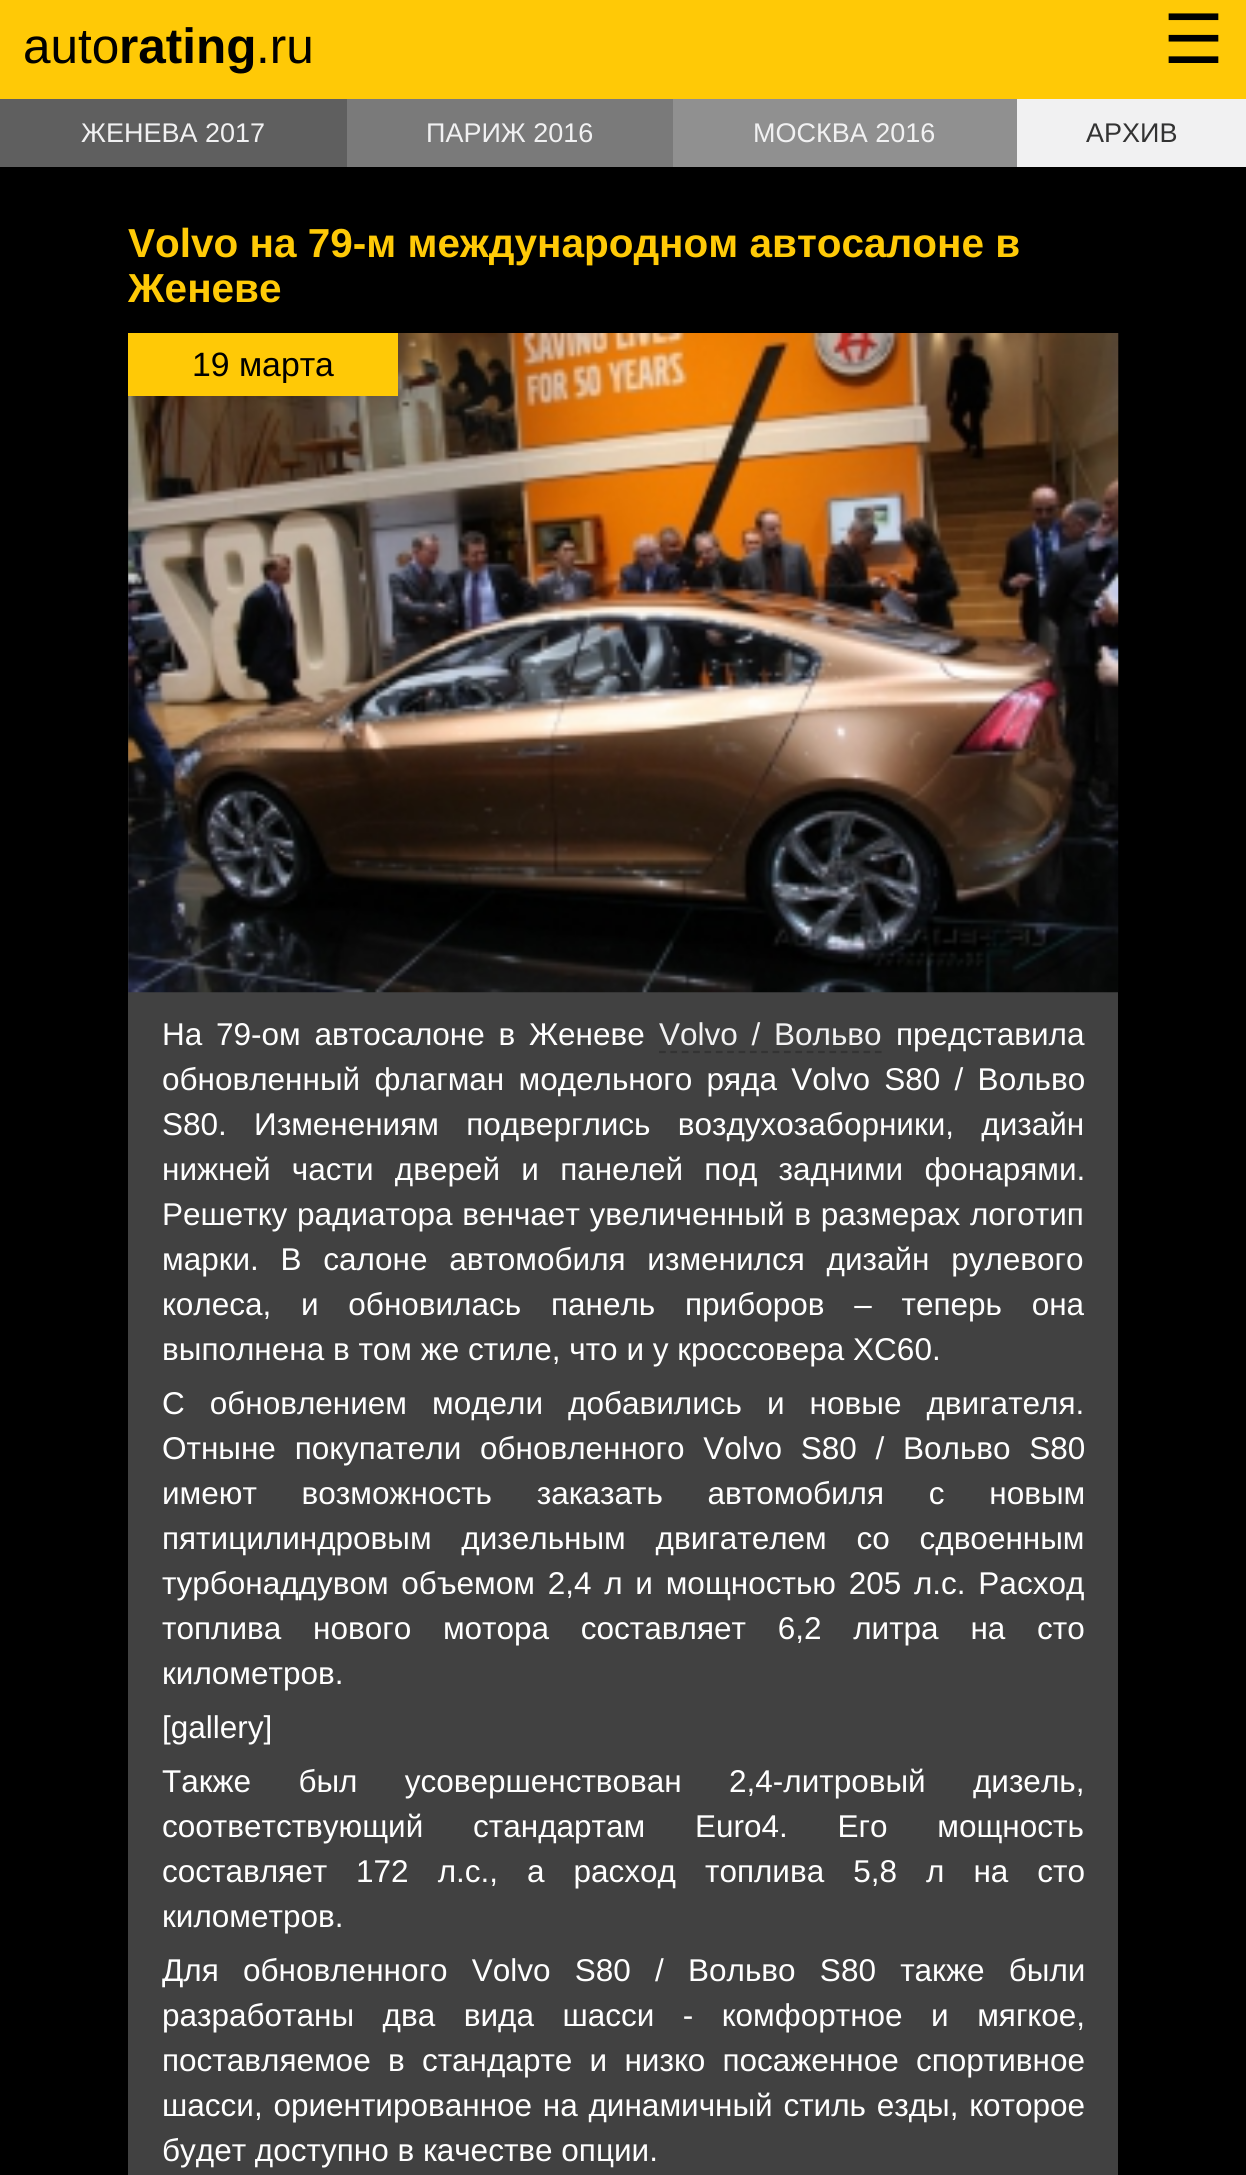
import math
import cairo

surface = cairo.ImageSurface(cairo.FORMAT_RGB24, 1246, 2175)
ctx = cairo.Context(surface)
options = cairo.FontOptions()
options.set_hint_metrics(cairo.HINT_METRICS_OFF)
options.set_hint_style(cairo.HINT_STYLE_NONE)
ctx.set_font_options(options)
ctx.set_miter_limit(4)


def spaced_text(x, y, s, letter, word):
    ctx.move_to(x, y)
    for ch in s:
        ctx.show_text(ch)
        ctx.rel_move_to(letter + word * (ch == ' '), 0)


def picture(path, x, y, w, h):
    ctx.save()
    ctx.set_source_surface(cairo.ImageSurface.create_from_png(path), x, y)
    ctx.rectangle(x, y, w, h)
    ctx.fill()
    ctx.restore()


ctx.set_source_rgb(0, 0, 0)
ctx.paint()
ctx.set_source_rgb(1, 0.788, 0.027)
ctx.rectangle(0, 0, 1246, 99)
ctx.fill()
ctx.select_font_face("Liberation Sans")
ctx.set_font_size(49.5)
ctx.set_source_rgb(0, 0, 0)
ctx.move_to(23, 63)
ctx.show_text("auto")
ctx.select_font_face("Liberation Sans", cairo.FONT_SLANT_NORMAL, cairo.FONT_WEIGHT_BOLD)
ctx.move_to(119, 63)
ctx.show_text("rating")
ctx.select_font_face("Liberation Sans")
ctx.move_to(256, 63)
ctx.show_text(".ru")
ctx.select_font_face("DejaVu Sans")
ctx.set_font_size(68)
ctx.move_to(1163, 63)
ctx.show_text("☰")
ctx.set_source_rgb(0.373, 0.373, 0.373)
ctx.rectangle(0, 99, 347, 68)
ctx.fill()
ctx.select_font_face("Liberation Sans")
ctx.set_font_size(27)
ctx.set_source_rgb(0.945, 0.945, 0.949)
ctx.move_to(81, 142)
ctx.show_text("ЖЕНЕВА 2017")
ctx.set_source_rgb(0.478, 0.478, 0.478)
ctx.rectangle(347, 99, 326, 68)
ctx.fill()
ctx.set_source_rgb(0.945, 0.945, 0.949)
ctx.move_to(426, 142)
ctx.show_text("ПАРИЖ 2016")
ctx.set_source_rgb(0.565, 0.565, 0.565)
ctx.rectangle(673, 99, 344, 68)
ctx.fill()
ctx.set_source_rgb(0.945, 0.945, 0.949)
ctx.move_to(753, 142)
ctx.show_text("МОСКВА 2016")
ctx.rectangle(1017, 99, 229, 68)
ctx.fill()
ctx.set_source_rgb(0.2, 0.2, 0.2)
ctx.move_to(1086, 142)
ctx.show_text("АРХИВ")
ctx.select_font_face("Liberation Sans", cairo.FONT_SLANT_NORMAL, cairo.FONT_WEIGHT_BOLD)
ctx.set_font_size(40.5)
ctx.set_source_rgb(1, 0.792, 0.031)
ctx.move_to(128, 257)
ctx.show_text("Volvo на 79-м международном автосалоне в")
ctx.move_to(128, 302)
ctx.show_text("Женеве")
ctx.set_source_rgb(0.255, 0.255, 0.255)
ctx.rectangle(128, 396, 990, 1779)
ctx.fill()
picture("img1.png", 128, 333, 991, 660)
ctx.set_source_rgb(1, 0.788, 0.027)
ctx.rectangle(128, 333, 270, 63)
ctx.fill()
ctx.select_font_face("Liberation Sans")
ctx.set_font_size(33.75)
ctx.set_source_rgb(0, 0, 0)
ctx.move_to(192, 376)
ctx.show_text("19 марта")
ctx.set_font_size(31.5)
ctx.set_source_rgb(1, 1, 1)
spaced_text(162, 1045, "На 79-ом автосалоне в Женеве", 0, 5)
ctx.set_source_rgb(0.945, 0.945, 0.949)
spaced_text(659, 1045, "Volvo / Вольво", 0, 5)
ctx.new_path()
ctx.move_to(659, 1052)
ctx.line_to(882, 1052)
ctx.set_source_rgb(0.2, 0.2, 0.2)
ctx.set_line_width(2.2)
ctx.set_dash([6.75, 4.61])
ctx.stroke()
ctx.set_source_rgb(1, 1, 1)
ctx.move_to(896, 1045)
ctx.show_text("представила")
spaced_text(162, 1090, "обновленный флагман модельного ряда Volvo S80 / Вольво", 0, 5.5)
spaced_text(162, 1135, "S80. Изменениям подверглись воздухозаборники, дизайн", 0, 18.5)
spaced_text(162, 1180, "нижней части дверей и панелей под задними фонарями.", 0, 12.5)
spaced_text(162, 1225, "Решетку радиатора венчает увеличенный в размерах логотип", 0, 1)
spaced_text(162, 1270, "марки. В салоне автомобиля изменился дизайн рулевого", 0, 13)
spaced_text(162, 1315, "колеса, и обновилась панель приборов – теперь она", 0, 21)
ctx.move_to(162, 1360)
ctx.show_text("выполнена в том же стиле, что и у кроссовера XC60.")
spaced_text(162, 1414, "С обновлением модели добавились и новые двигателя.", 0, 16.25)
spaced_text(162, 1459, "Отныне покупатели обновленного Volvo S80 / Вольво S80", 0, 10)
spaced_text(162, 1504, "имеют возможность заказать автомобиля с новым", 0, 36)
spaced_text(162, 1549, "пятицилиндровым дизельным двигателем со сдвоенным", 0, 21)
spaced_text(162, 1594, "турбонаддувом объемом 2,4 л и мощностью 205 л.с. Расход", 0, 4)
spaced_text(162, 1639, "топлива нового мотора составляет 6,2 литра на сто", 0, 23)
ctx.move_to(162, 1684)
ctx.show_text("километров.")
ctx.move_to(162, 1738)
ctx.show_text("[gallery]")
spaced_text(162, 1792, "Также был усовершенствован 2,4-литровый дизель,", 0, 38.5)
spaced_text(162, 1837, "соответствующий стандартам Euro4. Его мощность", 0, 41)
spaced_text(162, 1882, "составляет 172 л.с., а расход топлива 5,8 л на сто", 0, 20.25)
ctx.move_to(162, 1927)
ctx.show_text("километров.")
spaced_text(162, 1981, "Для обновленного Volvo S80 / Вольво S80 также были", 0, 15.5)
spaced_text(162, 2026, "разработаны два вида шасси - комфортное и мягкое,", 0, 19.75)
spaced_text(162, 2071, "поставляемое в стандарте и низко посаженное спортивное", 0, 8.5)
spaced_text(162, 2116, "шасси, ориентированное на динамичный стиль езды, которое", 0, 2)
ctx.move_to(162, 2161)
ctx.show_text("будет доступно в качестве опции.")
surface.write_to_png("page.png")
